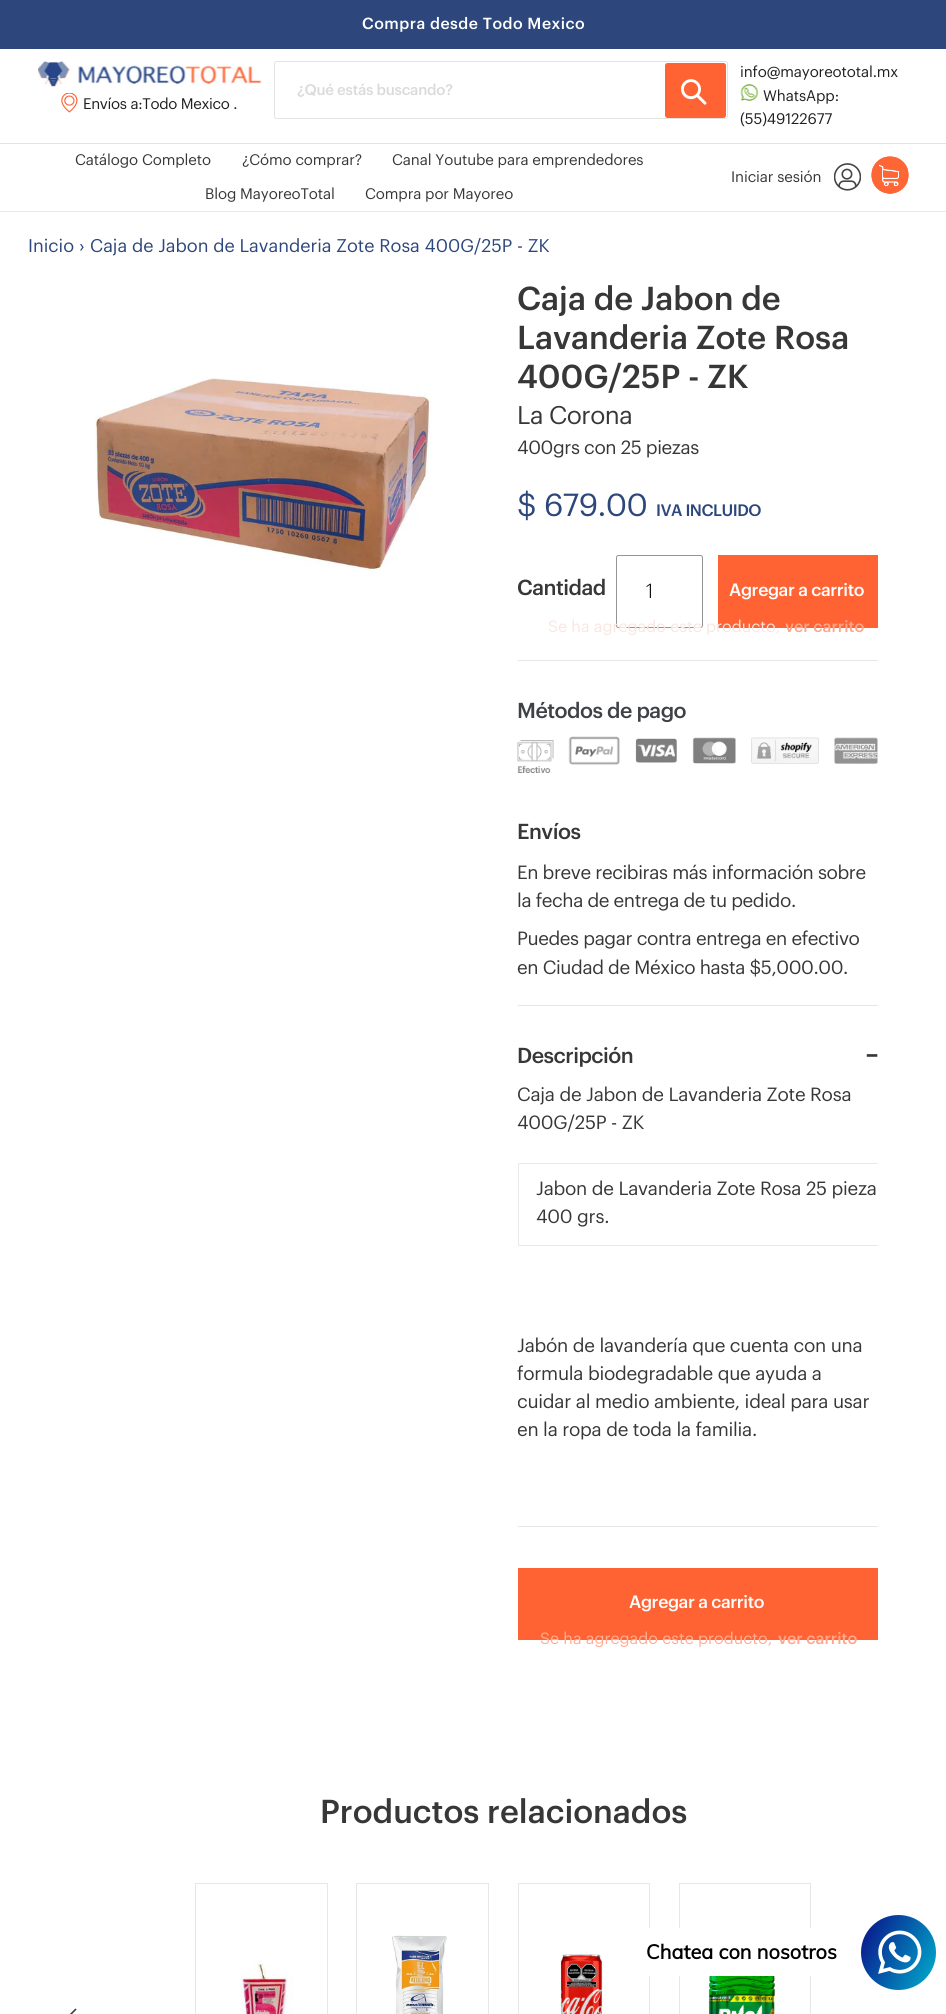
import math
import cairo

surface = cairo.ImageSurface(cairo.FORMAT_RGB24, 946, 2014)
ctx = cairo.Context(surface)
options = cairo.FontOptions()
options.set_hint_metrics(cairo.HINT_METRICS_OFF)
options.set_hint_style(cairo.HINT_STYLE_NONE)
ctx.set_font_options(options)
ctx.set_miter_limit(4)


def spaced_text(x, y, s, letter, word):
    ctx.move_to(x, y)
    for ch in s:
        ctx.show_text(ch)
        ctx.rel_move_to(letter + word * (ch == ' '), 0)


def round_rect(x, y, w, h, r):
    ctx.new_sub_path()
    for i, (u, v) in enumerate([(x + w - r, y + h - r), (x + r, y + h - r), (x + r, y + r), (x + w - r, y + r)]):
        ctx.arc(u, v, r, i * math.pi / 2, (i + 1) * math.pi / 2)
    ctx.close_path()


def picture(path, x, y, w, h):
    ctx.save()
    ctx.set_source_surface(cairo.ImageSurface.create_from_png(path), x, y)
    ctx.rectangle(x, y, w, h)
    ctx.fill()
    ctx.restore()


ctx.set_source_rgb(1, 1, 1)
ctx.paint()
ctx.set_source_rgb(0.176, 0.278, 0.486)
ctx.rectangle(0, 0, 946, 49)
ctx.fill()
ctx.select_font_face("Graphik Medium")
ctx.set_font_size(15.75)
ctx.set_source_rgb(1, 1, 1)
spaced_text(362, 29, "Compra desde Todo Mexico", 0.5, 0)
round_rect(274.5, 61.5, 453, 57, 2)
ctx.set_source_rgb(0.886, 0.894, 0.882)
ctx.set_line_width(1)
ctx.stroke()
ctx.set_font_size(15)
ctx.set_source_rgb(0.855, 0.855, 0.855)
spaced_text(297, 95, "¿Qué estás buscando?", -0.25, 0)
ctx.set_source_rgb(1, 0.388, 0.2)
round_rect(665, 63, 61, 55, 2.5)
ctx.fill()
picture("img1.png", 681, 79, 26, 26)
ctx.select_font_face("Graphik", cairo.FONT_SLANT_ITALIC)
ctx.set_source_rgb(0.122, 0.122, 0.122)
spaced_text(740, 77, "info@mayoreototal.mx", -0.1, 0)
picture("img2.png", 740, 83, 19, 18)
spaced_text(763, 101, "WhatsApp:", -0.1, 0)
spaced_text(740, 124, "(55)49122677", -0.1, 0)
picture("img3.png", 38, 61, 224, 26)
picture("img4.png", 61, 93, 17, 20)
spaced_text(83, 109, "Envíos a:Todo Mexico .", -0.3, 0)
ctx.set_source_rgb(0.886, 0.894, 0.882)
ctx.rectangle(0, 143, 946, 1)
ctx.fill()
ctx.set_source_rgb(0.91, 0.914, 0.922)
ctx.rectangle(0, 211, 946, 1)
ctx.fill()
ctx.set_source_rgb(0.216, 0.216, 0.216)
spaced_text(75, 165, "Catálogo Completo", -0.1, 0)
spaced_text(242, 165, "¿Cómo comprar?", -0.1, 0)
spaced_text(392, 165, "Canal Youtube para emprendedores", -0.1, 0)
spaced_text(205, 199, "Blog MayoreoTotal", -0.1, 0)
spaced_text(365, 199, "Compra por Mayoreo", -0.1, 0)
spaced_text(731, 182, "Iniciar sesión", -0.1, 0)
picture("img5.png", 834, 163, 27, 28)
picture("img6.png", 871, 156, 38, 38)
ctx.set_font_size(18)
ctx.set_source_rgb(0.176, 0.278, 0.486)
ctx.move_to(28, 252)
ctx.show_text("Inicio")
ctx.move_to(79, 252)
ctx.show_text("›")
ctx.move_to(90, 252)
ctx.show_text("Caja de Jabon de Lavanderia Zote Rosa 400G/25P - ZK")
picture("img7.png", 95, 377, 336, 197)
ctx.select_font_face("Graphik Medium")
ctx.set_font_size(32.5)
ctx.set_source_rgb(0.216, 0.216, 0.216)
ctx.move_to(517, 310)
ctx.show_text("Caja de Jabon de")
ctx.move_to(517, 349)
ctx.show_text("Lavanderia Zote Rosa")
ctx.move_to(517, 388)
ctx.show_text("400G/25P - ZK")
ctx.select_font_face("Graphik", cairo.FONT_SLANT_ITALIC)
ctx.set_font_size(25)
spaced_text(517, 424, "La Corona", -0.5, 0)
ctx.set_font_size(18.75)
spaced_text(517, 454, "400grs con 25 piezas", -0.4, 0)
ctx.set_font_size(31.25)
ctx.set_source_rgb(0.176, 0.278, 0.486)
spaced_text(517, 516, "$ 679.00", -0.5, 0)
ctx.select_font_face("Graphik Medium")
ctx.set_font_size(16.25)
spaced_text(656, 516, "IVA INCLUIDO", -0.5, 0)
ctx.set_source_rgb(0.906, 0.906, 0.906)
ctx.rectangle(518, 660, 360, 1)
ctx.fill()
ctx.set_font_size(21.25)
ctx.set_source_rgb(0.216, 0.216, 0.216)
spaced_text(517, 595, "Cantidad", -0.5, 0)
round_rect(616.5, 555.5, 86, 72, 2)
ctx.set_source_rgb(0.58, 0.58, 0.58)
ctx.stroke()
ctx.select_font_face("Graphik Light")
ctx.set_font_size(20)
ctx.set_source_rgb(0, 0, 0)
ctx.move_to(646, 598)
ctx.show_text("1")
ctx.set_source_rgb(1, 0.388, 0.2)
ctx.rectangle(718, 555, 160, 73)
ctx.fill()
ctx.select_font_face("Graphik Medium")
ctx.set_font_size(17.5)
ctx.set_source_rgb(1, 1, 1)
spaced_text(729, 596, "Agregar a carrito", -0.4, 0)
ctx.select_font_face("Graphik", cairo.FONT_SLANT_ITALIC)
ctx.set_font_size(16)
ctx.set_source_rgb(0.98, 0.902, 0.878)
ctx.move_to(548, 632)
ctx.show_text("Se ha agregado este producto,")
ctx.select_font_face("Graphik Medium")
ctx.set_source_rgb(1, 0.651, 0.541)
ctx.move_to(785, 632)
ctx.show_text("ver carrito")
ctx.set_font_size(21.25)
ctx.set_source_rgb(0.239, 0.259, 0.275)
spaced_text(517, 718, "Métodos de pago", -0.5, 0)
picture("img8.png", 517, 740, 37, 34)
picture("img9.png", 568, 736, 52, 29)
picture("img10.png", 635, 738, 42, 25)
picture("img11.png", 692, 737, 44, 27)
picture("img12.png", 751, 737, 68, 27)
picture("img13.png", 833, 737, 45, 27)
ctx.set_source_rgb(0.906, 0.906, 0.906)
ctx.rectangle(518, 1005, 360, 1)
ctx.fill()
ctx.set_source_rgb(0.216, 0.216, 0.216)
spaced_text(517, 839, "Envíos", -0.5, 0)
ctx.select_font_face("Graphik", cairo.FONT_SLANT_ITALIC)
ctx.set_font_size(18.75)
spaced_text(517, 879, "En breve recibiras más información sobre", -0.4, 0)
spaced_text(517, 907, "la fecha de entrega de tu pedido.", -0.4, 0)
spaced_text(517, 945, "Puedes pagar contra entrega en efectivo", -0.4, 0)
spaced_text(517, 974, "en Ciudad de México hasta $5,000.00.", -0.4, 0)
ctx.set_source_rgb(0.906, 0.906, 0.906)
ctx.rectangle(518, 1526, 360, 1)
ctx.fill()
ctx.select_font_face("Graphik Medium")
ctx.set_font_size(21.25)
ctx.set_source_rgb(0.216, 0.216, 0.216)
spaced_text(517, 1063, "Descripción", -0.5, 0)
ctx.select_font_face("Graphik", cairo.FONT_SLANT_NORMAL, cairo.FONT_WEIGHT_BOLD)
spaced_text(866, 1063, "−", -0.5, 0)
ctx.select_font_face("Graphik", cairo.FONT_SLANT_ITALIC)
ctx.set_font_size(18.75)
spaced_text(517, 1101, "Caja de Jabon de Lavanderia Zote Rosa", -0.25, 0)
spaced_text(517, 1129, "400G/25P - ZK", -0.25, 0)
ctx.set_source_rgb(0.91, 0.914, 0.922)
ctx.rectangle(518, 1163, 360, 1)
ctx.fill()
ctx.rectangle(518, 1245, 360, 1)
ctx.fill()
ctx.rectangle(518, 1163, 1, 83)
ctx.fill()
ctx.set_source_rgb(0.216, 0.216, 0.216)
spaced_text(536, 1195, "Jabon de Lavanderia Zote Rosa 25 pieza", -0.25, 0)
spaced_text(536, 1223, "400 grs.", -0.25, 0)
spaced_text(517, 1352, "Jabón de lavandería que cuenta con una", -0.25, 0)
spaced_text(517, 1380, "formula biodegradable que ayuda a", -0.25, 0)
ctx.save()
ctx.rectangle(518, 1083, 360, 416)
ctx.clip()
spaced_text(517, 1408, "cuidar al medio ambiente, ideal para usar", -0.25, 0)
spaced_text(517, 1436, "en la ropa de toda la familia.", -0.25, 0)
ctx.restore()
ctx.set_source_rgb(1, 0.388, 0.2)
ctx.rectangle(518, 1568, 360, 72)
ctx.fill()
ctx.select_font_face("Graphik Medium")
ctx.set_font_size(17.5)
ctx.set_source_rgb(1, 1, 1)
spaced_text(629, 1608, "Agregar a carrito", -0.4, 0)
ctx.select_font_face("Graphik", cairo.FONT_SLANT_ITALIC)
ctx.set_font_size(16)
ctx.set_source_rgb(1, 0.682, 0.584)
ctx.move_to(540, 1644)
ctx.show_text("Se ha agregado este producto,")
ctx.select_font_face("Graphik Medium")
ctx.set_source_rgb(1, 0.651, 0.541)
ctx.move_to(778, 1644)
ctx.show_text("ver carrito")
ctx.set_font_size(32.5)
ctx.set_source_rgb(0.216, 0.216, 0.216)
ctx.move_to(320, 1823)
ctx.show_text("Productos relacionados")
ctx.rectangle(195.5, 1883.5, 132, 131)
ctx.set_source_rgb(0.906, 0.906, 0.906)
ctx.stroke()
picture("img14.png", 241, 1961, 52, 53)
ctx.rectangle(356.5, 1883.5, 132, 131)
ctx.stroke()
picture("img15.png", 392, 1935, 55, 79)
ctx.rectangle(518.5, 1883.5, 131, 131)
ctx.stroke()
picture("img16.png", 560, 1954, 43, 60)
ctx.rectangle(679.5, 1883.5, 131, 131)
ctx.stroke()
picture("img17.png", 708, 1976, 69, 38)
ctx.new_path()
ctx.move_to(76, 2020.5)
ctx.line_to(70, 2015)
ctx.line_to(76, 2009)
ctx.set_source_rgb(0.231, 0.231, 0.231)
ctx.set_line_width(1.6)
ctx.stroke()
gradient = cairo.LinearGradient(854, 1931, 944, 1974)
gradient.add_color_stop_rgba(0, 0.039, 0.055, 0.533, 1)
gradient.add_color_stop_rgba(1, 0, 0.694, 0.808, 1)
ctx.set_source(gradient)
ctx.arc(898.5, 1952.5, 37.5, 0, 2 * math.pi)
ctx.fill()
ctx.set_source_rgb(1, 1, 1)
round_rect(634, 1928, 215, 48, 10)
ctx.fill()
ctx.select_font_face("Muli", cairo.FONT_SLANT_NORMAL, cairo.FONT_WEIGHT_BOLD)
ctx.set_font_size(20)
ctx.set_source_rgb(0, 0, 0)
ctx.move_to(646, 1959)
ctx.show_text("Chatea con nosotros")
picture("img18.png", 878, 1930, 44, 44)
surface.write_to_png("page.png")
